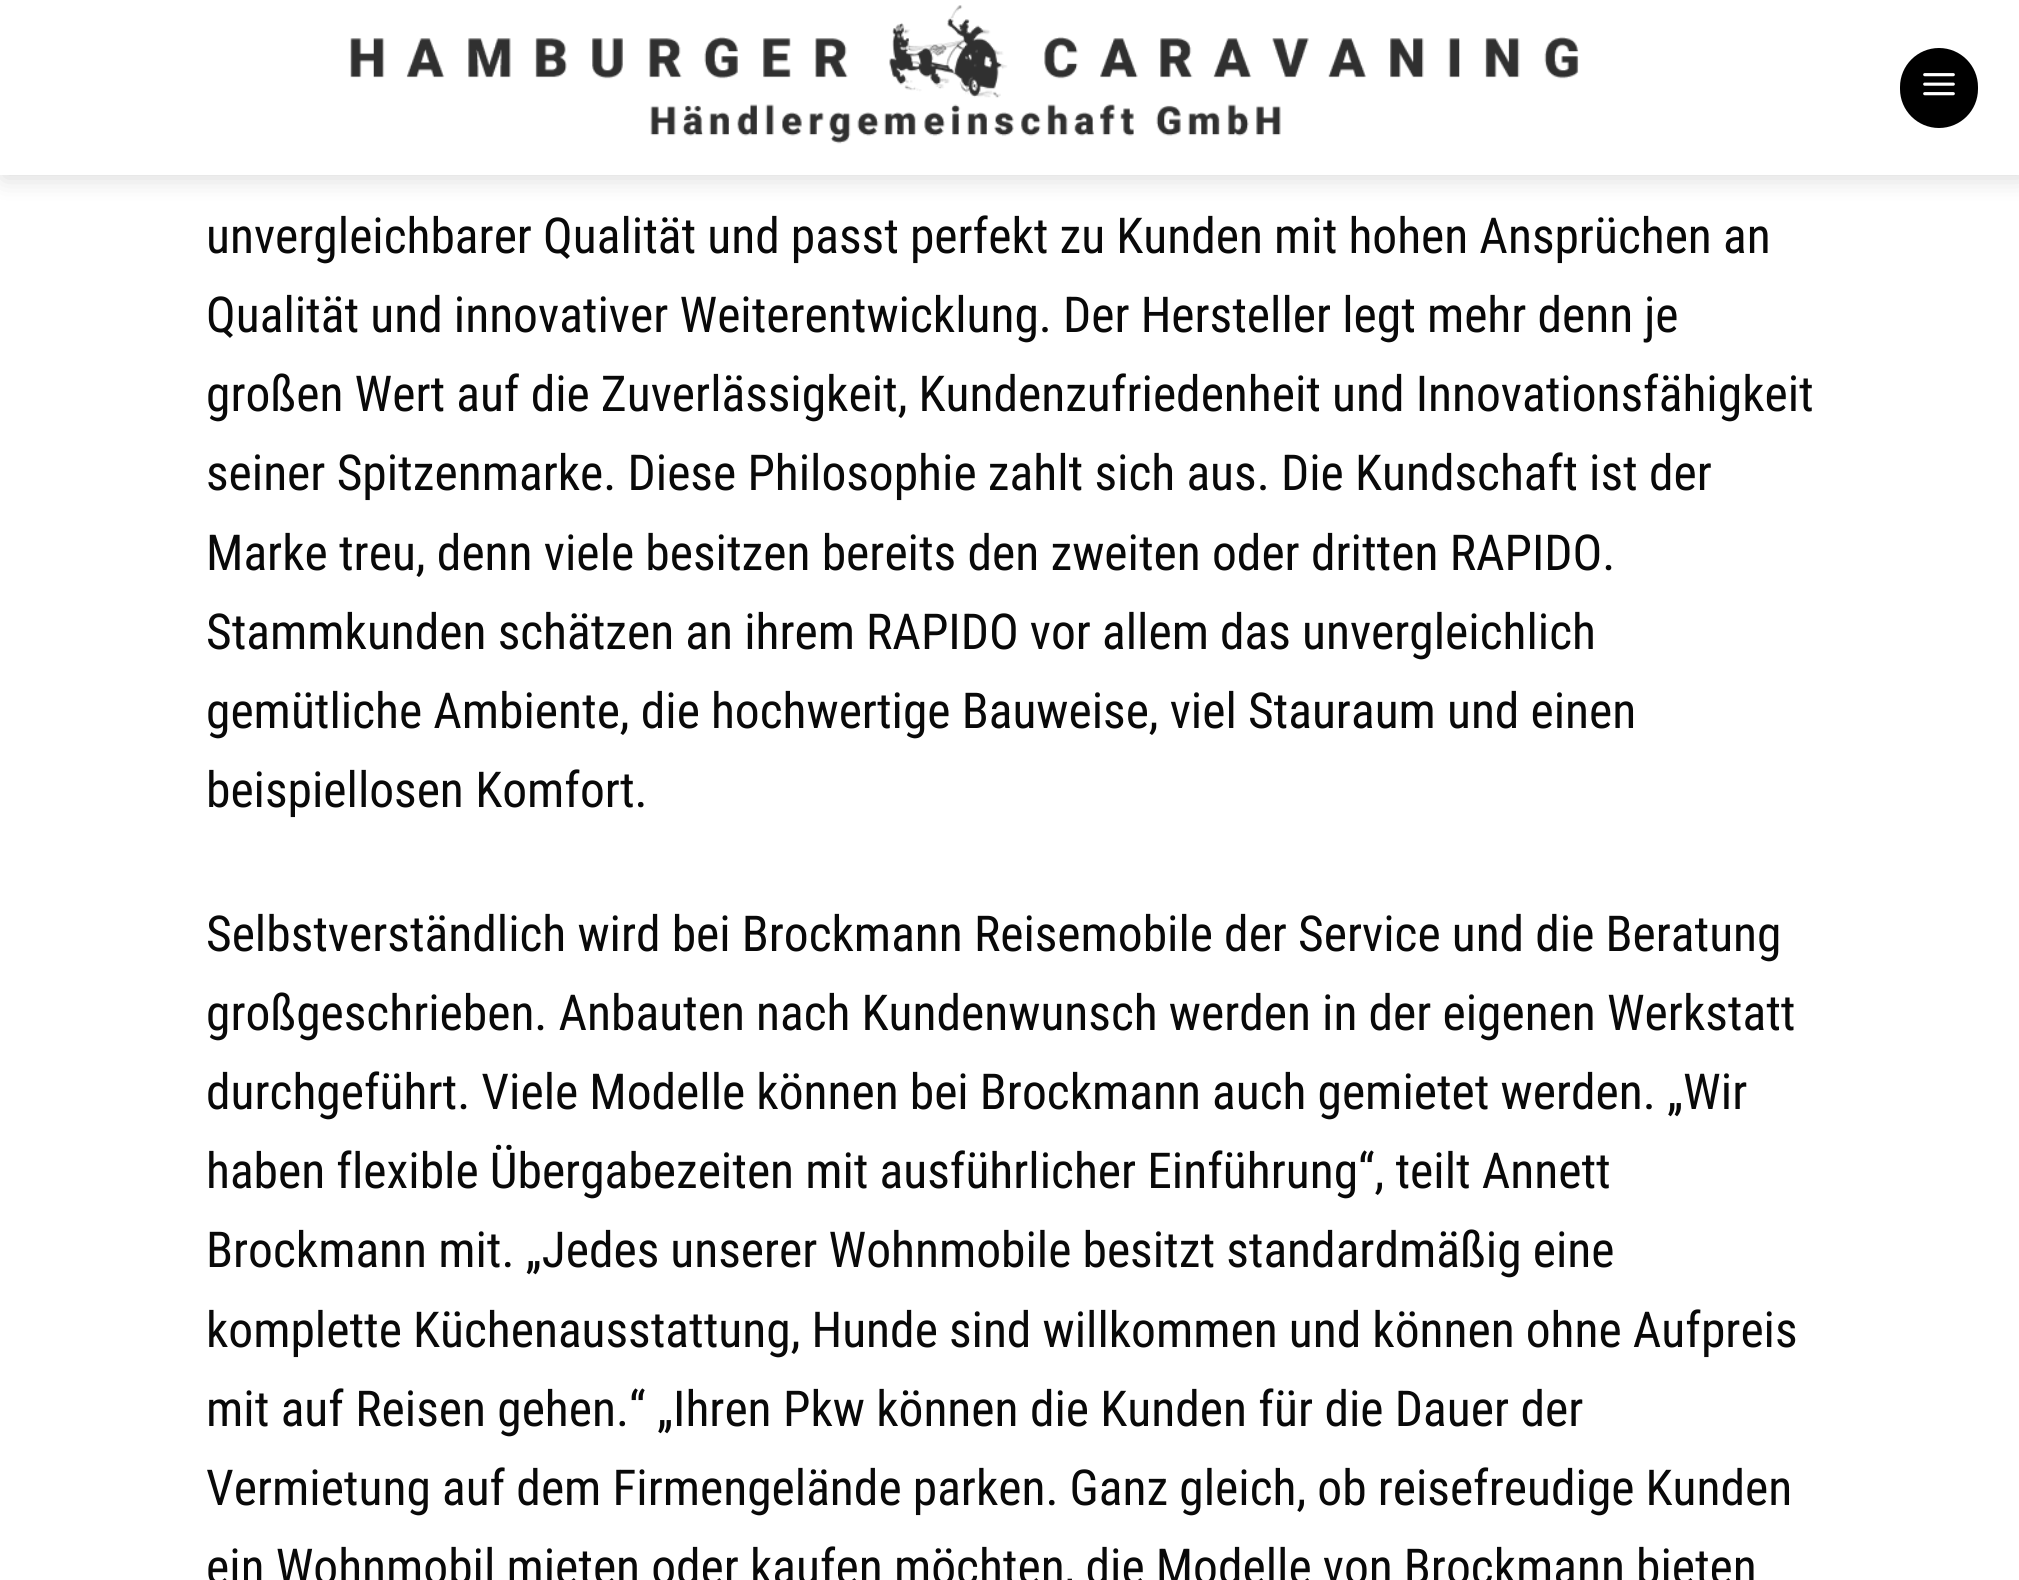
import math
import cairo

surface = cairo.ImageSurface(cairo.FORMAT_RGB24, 2019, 1580)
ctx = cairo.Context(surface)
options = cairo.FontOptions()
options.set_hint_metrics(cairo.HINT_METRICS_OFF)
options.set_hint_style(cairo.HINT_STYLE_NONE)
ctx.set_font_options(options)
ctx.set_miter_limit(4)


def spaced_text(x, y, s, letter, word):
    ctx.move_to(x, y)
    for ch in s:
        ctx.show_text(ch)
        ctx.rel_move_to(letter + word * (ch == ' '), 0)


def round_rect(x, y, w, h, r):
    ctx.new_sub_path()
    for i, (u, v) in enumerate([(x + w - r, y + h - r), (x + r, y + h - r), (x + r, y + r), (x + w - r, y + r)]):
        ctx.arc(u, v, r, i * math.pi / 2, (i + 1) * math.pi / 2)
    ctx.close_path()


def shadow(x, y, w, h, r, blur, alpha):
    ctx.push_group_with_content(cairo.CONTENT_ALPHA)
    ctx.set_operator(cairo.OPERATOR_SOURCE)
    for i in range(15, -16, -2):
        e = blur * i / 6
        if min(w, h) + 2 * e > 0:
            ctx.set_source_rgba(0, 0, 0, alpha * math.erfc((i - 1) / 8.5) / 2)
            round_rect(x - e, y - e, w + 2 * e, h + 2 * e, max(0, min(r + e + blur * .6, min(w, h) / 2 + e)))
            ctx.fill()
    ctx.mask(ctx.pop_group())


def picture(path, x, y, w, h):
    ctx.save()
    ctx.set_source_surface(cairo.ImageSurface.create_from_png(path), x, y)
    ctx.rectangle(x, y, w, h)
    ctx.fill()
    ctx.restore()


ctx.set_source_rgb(1, 1, 1)
ctx.paint()
ctx.set_source_rgb(0, 0, 0)
shadow(3, 3, 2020, 175, 0, 12.5, 0.15)
ctx.set_source_rgb(1, 1, 1)
ctx.rectangle(0, 0, 2019, 175)
ctx.fill()
picture("img1.png", 350, 5, 1229, 139)
ctx.set_source_rgb(0, 0, 0)
round_rect(1900, 48, 78, 80, 39)
ctx.fill()
picture("img2.png", 1923, 73, 32, 23)
ctx.select_font_face("Roboto Condensed")
ctx.set_font_size(49.5)
ctx.set_source_rgb(0.039, 0.039, 0.039)
spaced_text(206, 253, "unvergleichbarer Qualität und passt perfekt zu Kunden mit hohen Ansprüchen an", 0, -0.25)
spaced_text(206, 332, "Qualität und innovativer Weiterentwicklung. Der Hersteller legt mehr denn je", 0, -0.25)
spaced_text(206, 411, "großen Wert auf die Zuverlässigkeit, Kundenzufriedenheit und Innovationsfähigkeit", 0, -0.25)
spaced_text(206, 490, "seiner Spitzenmarke. Diese Philosophie zahlt sich aus. Die Kundschaft ist der", 0, -0.1)
spaced_text(206, 570, "Marke treu, denn viele besitzen bereits den zweiten oder dritten RAPIDO.", 0, -0.1)
spaced_text(206, 649, "Stammkunden schätzen an ihrem RAPIDO vor allem das unvergleichlich", 0, -0.25)
spaced_text(206, 728, "gemütliche Ambiente, die hochwertige Bauweise, viel Stauraum und einen", 0, -0.25)
ctx.move_to(206, 807)
ctx.show_text("beispiellosen Komfort.")
spaced_text(206, 951, "Selbstverständlich wird bei Brockmann Reisemobile der Service und die Beratung", 0, -0.25)
spaced_text(206, 1030, "großgeschrieben. Anbauten nach Kundenwunsch werden in der eigenen Werkstatt", 0, -0.25)
spaced_text(206, 1109, "durchgeführt. Viele Modelle können bei Brockmann auch gemietet werden. „Wir", 0, -0.25)
spaced_text(206, 1188, "haben flexible Übergabezeiten mit ausführlicher Einführung“, teilt Annett", 0, -0.25)
spaced_text(206, 1267, "Brockmann mit. „Jedes unserer Wohnmobile besitzt standardmäßig eine", 0, -0.25)
spaced_text(206, 1347, "komplette Küchenausstattung, Hunde sind willkommen und können ohne Aufpreis", 0, -0.25)
ctx.move_to(206, 1426)
ctx.show_text("mit auf Reisen gehen.“ „Ihren Pkw können die Kunden für die Dauer der")
spaced_text(206, 1505, "Vermietung auf dem Firmengelände parken. Ganz gleich, ob reisefreudige Kunden", 0, -0.25)
spaced_text(206, 1584, "ein Wohnmobil mieten oder kaufen möchten, die Modelle von Brockmann bieten", 0, -0.25)
surface.write_to_png("page.png")
